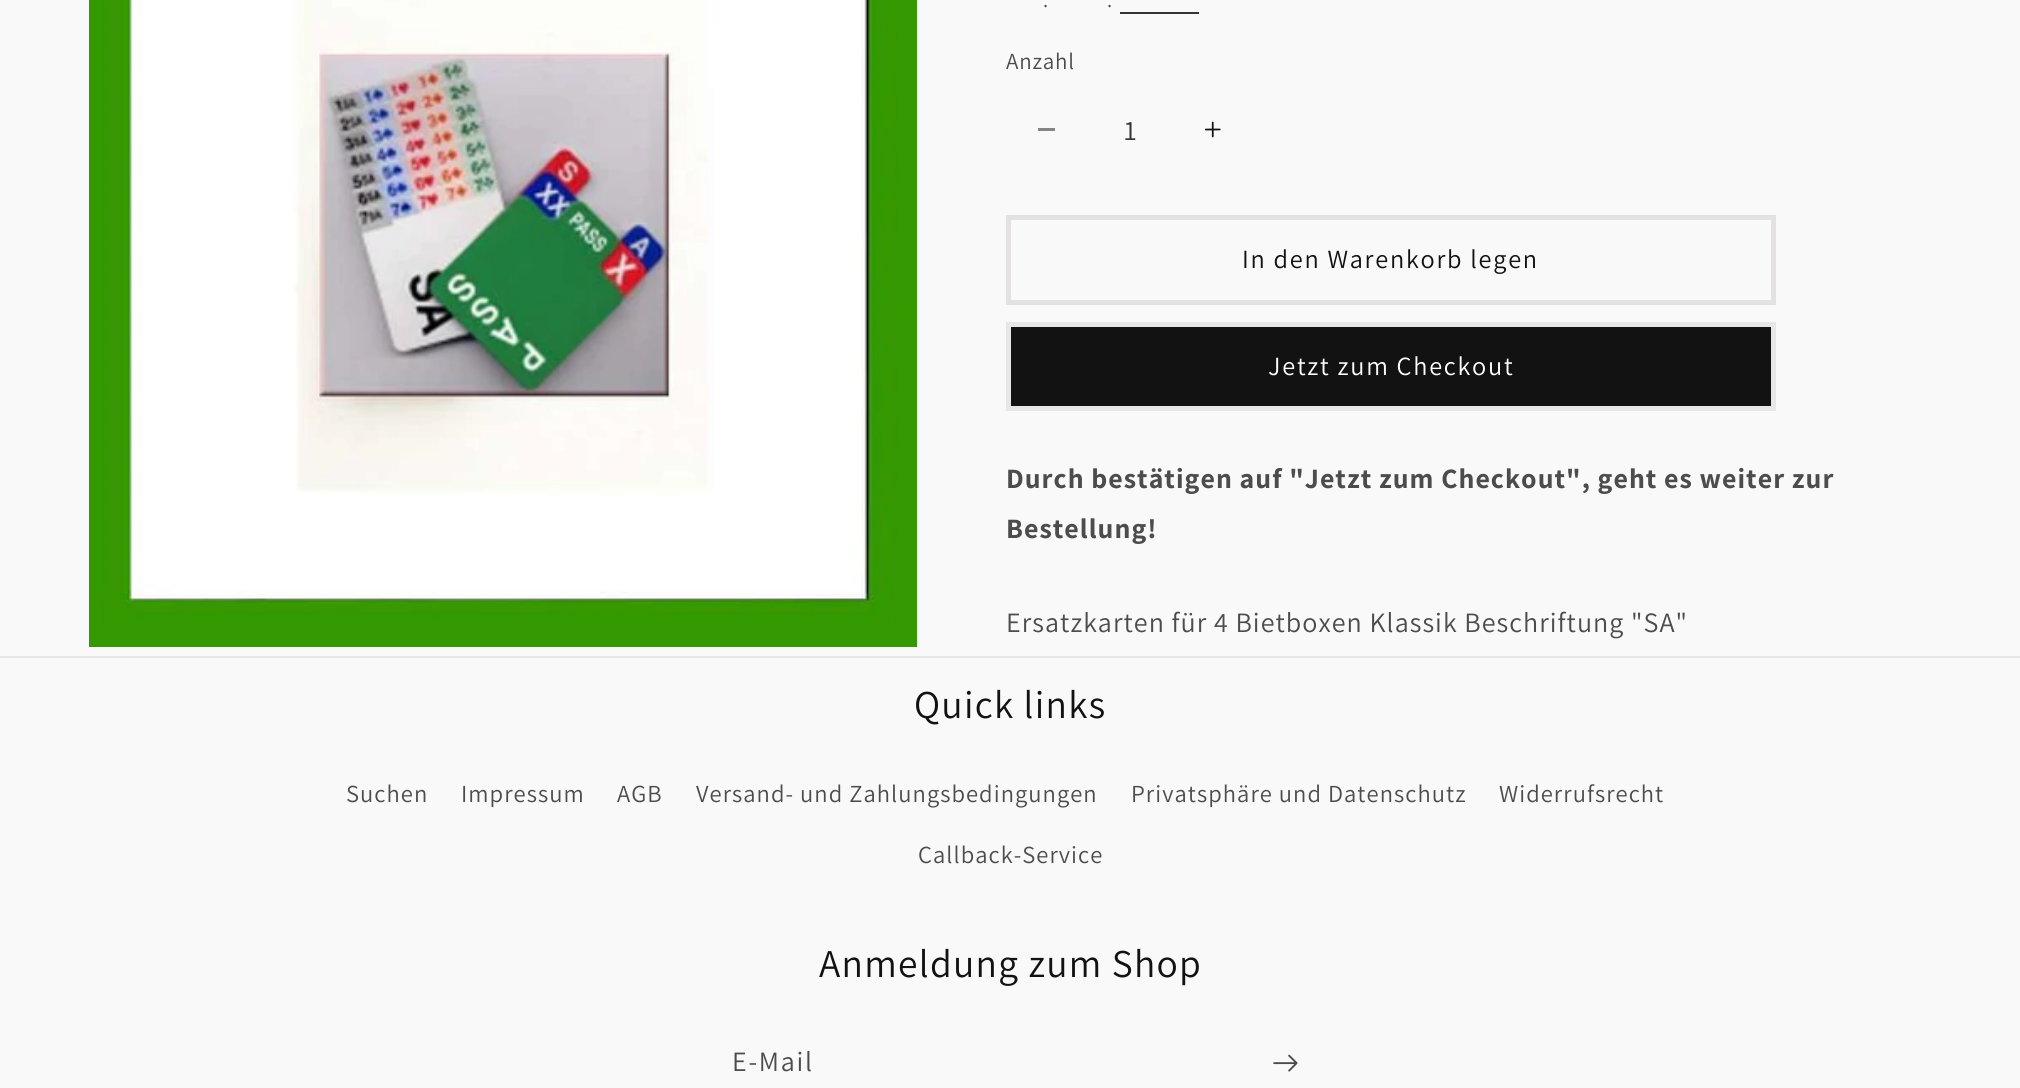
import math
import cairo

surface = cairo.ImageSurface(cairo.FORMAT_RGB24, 2020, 1088)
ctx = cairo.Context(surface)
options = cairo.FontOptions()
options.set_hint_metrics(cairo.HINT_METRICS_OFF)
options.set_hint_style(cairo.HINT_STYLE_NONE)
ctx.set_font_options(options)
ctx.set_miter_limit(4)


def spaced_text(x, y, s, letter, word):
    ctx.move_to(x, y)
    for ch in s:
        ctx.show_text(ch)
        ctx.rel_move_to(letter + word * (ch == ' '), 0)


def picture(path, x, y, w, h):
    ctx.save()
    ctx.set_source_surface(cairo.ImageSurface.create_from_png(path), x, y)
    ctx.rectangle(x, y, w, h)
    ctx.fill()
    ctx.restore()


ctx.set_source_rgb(0.98, 0.973, 0.973)
ctx.paint()
picture("img1.png", 89, 0, 828, 647)
ctx.select_font_face("Assistant")
ctx.set_font_size(21)
ctx.set_source_rgb(0.298, 0.298, 0.298)
spaced_text(1043, 7, ".", 1, 0)
spaced_text(1107, 7, ".", 1, 0)
ctx.set_source_rgb(0.208, 0.208, 0.208)
ctx.rectangle(1120, 12, 79, 2)
ctx.fill()
ctx.set_font_size(23)
ctx.set_source_rgb(0.298, 0.298, 0.298)
spaced_text(1006, 69, "Anzahl", 0.75, 0)
ctx.set_source_rgb(0.525, 0.522, 0.522)
ctx.rectangle(1038, 128, 17, 3)
ctx.fill()
ctx.set_font_size(28)
ctx.set_source_rgb(0.208, 0.208, 0.208)
ctx.move_to(1124, 140)
ctx.show_text("1")
picture("img2.png", 1204, 121, 17, 17)
ctx.rectangle(1008.5, 217.5, 765, 85)
ctx.set_source_rgb(0.89, 0.882, 0.882)
ctx.set_line_width(5)
ctx.stroke()
ctx.set_font_size(26.25)
ctx.set_source_rgb(0.071, 0.071, 0.071)
spaced_text(1242, 268, "In den Warenkorb legen", 1.75, 0)
ctx.rectangle(1011, 327, 760, 79)
ctx.fill()
ctx.rectangle(1008.5, 324.5, 765, 84)
ctx.set_source_rgb(0.906, 0.906, 0.906)
ctx.stroke()
ctx.set_source_rgb(1, 1, 1)
spaced_text(1268, 375, "Jetzt zum Checkout", 1.75, 0)
ctx.select_font_face("Assistant", cairo.FONT_SLANT_NORMAL, cairo.FONT_WEIGHT_BOLD)
ctx.set_font_size(28)
ctx.set_source_rgb(0.298, 0.298, 0.298)
spaced_text(1006, 488, "Durch bestätigen auf \"Jetzt zum Checkout\", geht es weiter zur", 1.05, 0)
spaced_text(1006, 538, "Bestellung!", 1.05, 0)
ctx.select_font_face("Assistant")
spaced_text(1006, 632, "Ersatzkarten für 4 Bietboxen Klassik Beschriftung \"SA\"", 1.05, 0)
ctx.set_source_rgb(0.906, 0.902, 0.902)
ctx.rectangle(0, 656, 2020, 2)
ctx.fill()
ctx.set_font_size(39.4)
ctx.set_source_rgb(0.071, 0.071, 0.071)
spaced_text(914, 718, "Quick links", 1.3, 0)
ctx.set_font_size(24.5)
ctx.set_source_rgb(0.298, 0.298, 0.298)
spaced_text(346, 802, "Suchen", 1.05, 0)
spaced_text(461, 802, "Impressum", 1.05, 0)
spaced_text(617, 802, "AGB", 1.05, 0)
spaced_text(696, 802, "Versand- und Zahlungsbedingungen", 1.05, 0)
spaced_text(1131, 802, "Privatsphäre und Datenschutz", 1.05, 0)
spaced_text(1499, 802, "Widerrufsrecht", 1.05, 0)
spaced_text(918, 863, "Callback-Service", 1.05, 0)
ctx.set_font_size(39.4)
ctx.set_source_rgb(0.071, 0.071, 0.071)
spaced_text(819, 977, "Anmeldung zum Shop", 1.3, 0)
ctx.set_font_size(28)
ctx.set_source_rgb(0.298, 0.298, 0.298)
spaced_text(732, 1071, "E-Mail", 1.75, 0)
picture("img3.png", 1273, 1054, 25, 18)
surface.write_to_png("page.png")
